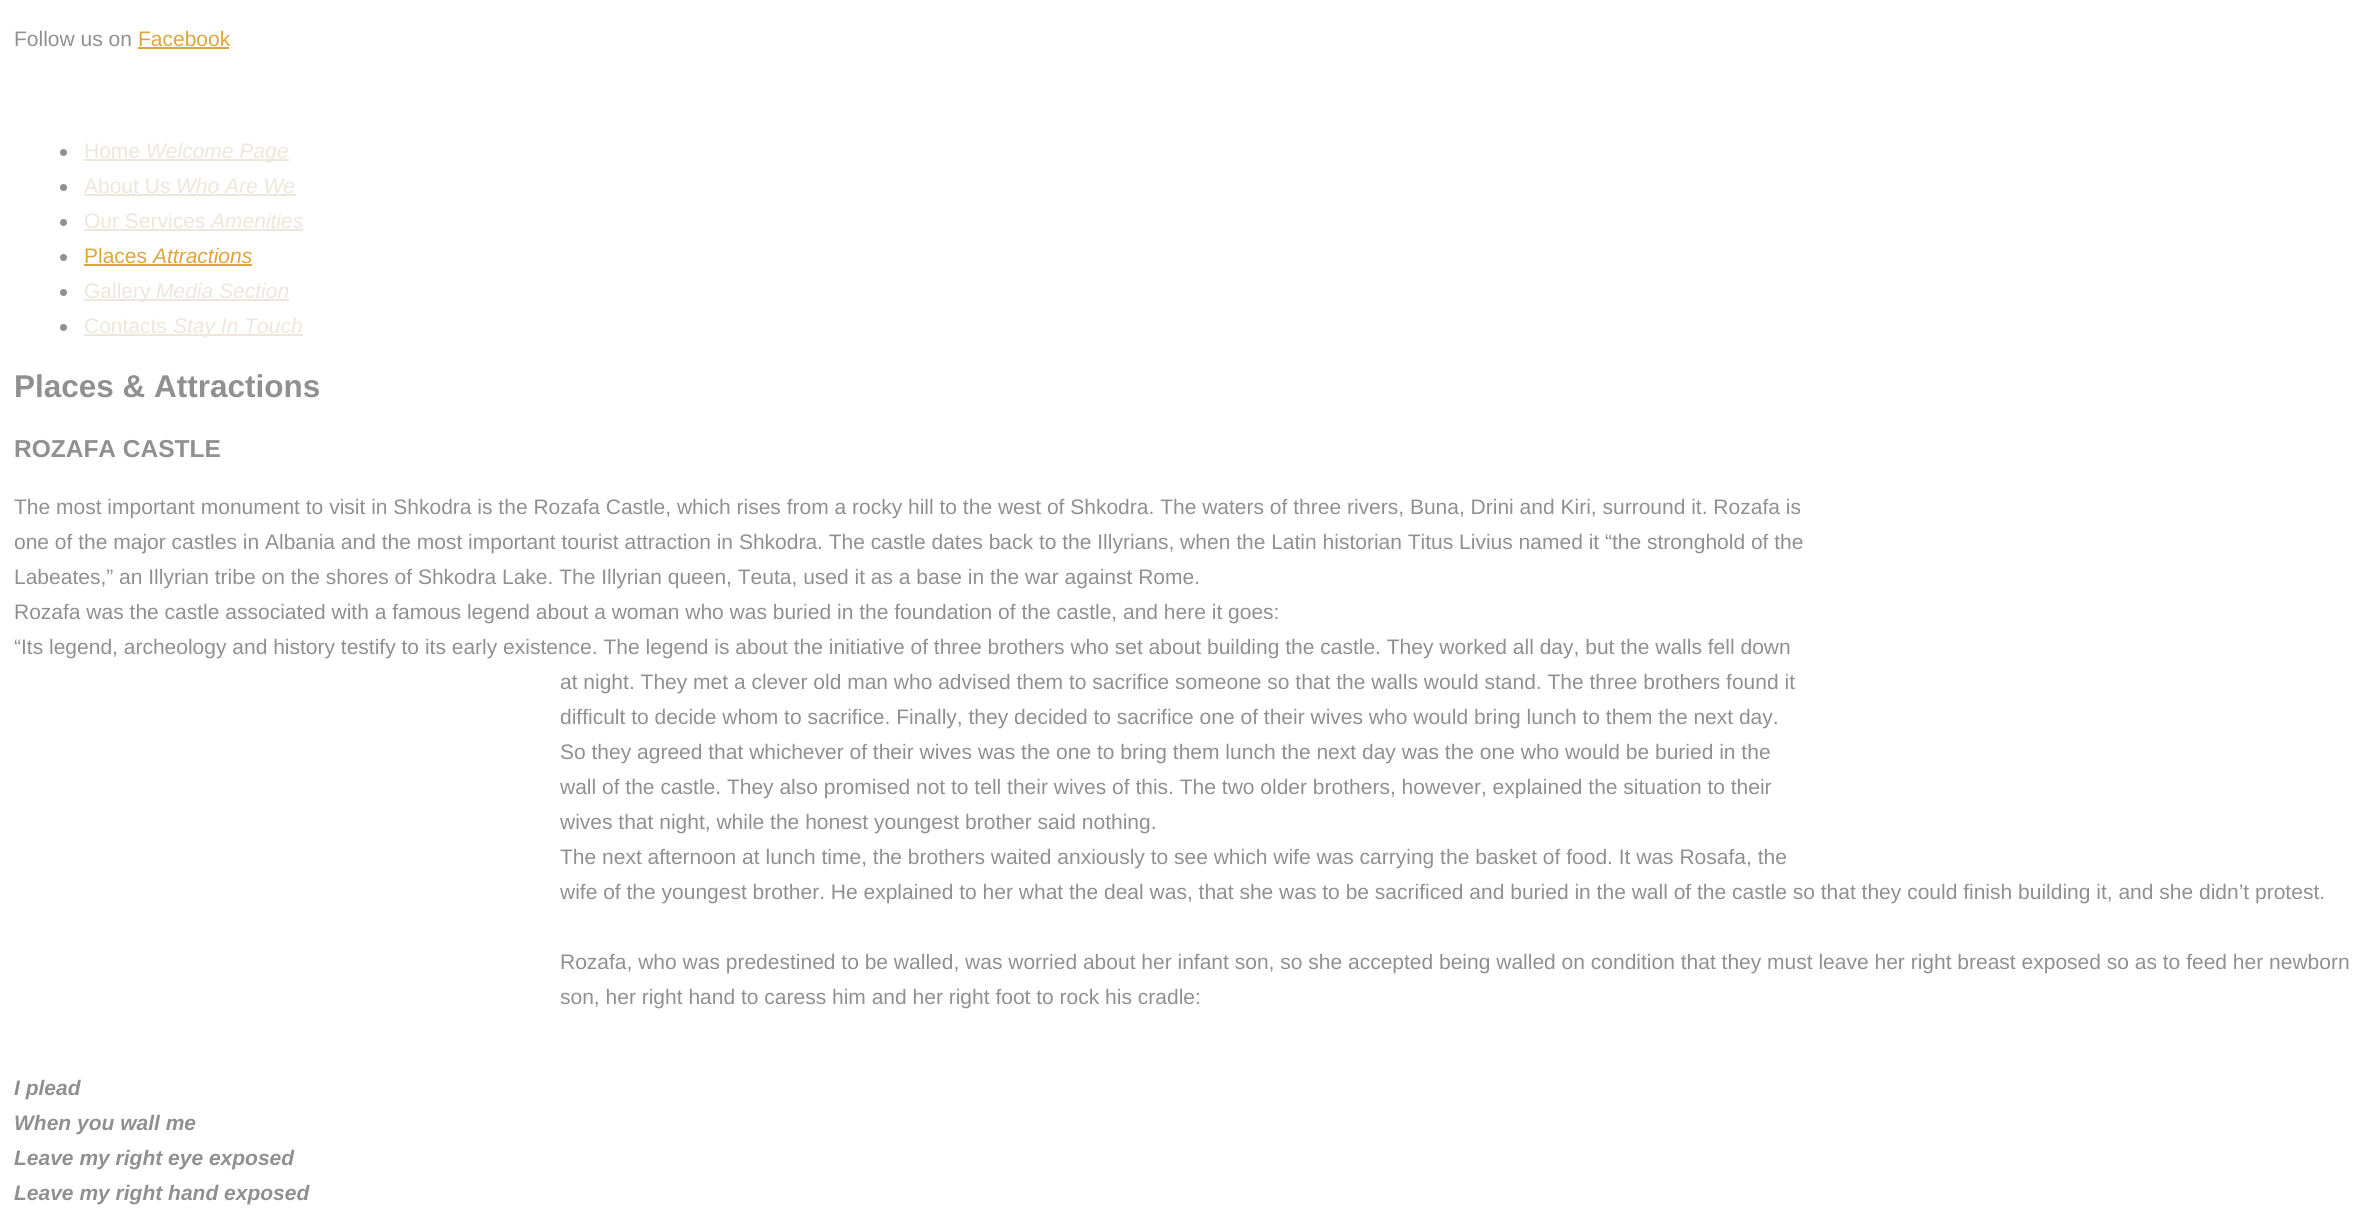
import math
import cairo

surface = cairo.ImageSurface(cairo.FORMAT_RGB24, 2364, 1215)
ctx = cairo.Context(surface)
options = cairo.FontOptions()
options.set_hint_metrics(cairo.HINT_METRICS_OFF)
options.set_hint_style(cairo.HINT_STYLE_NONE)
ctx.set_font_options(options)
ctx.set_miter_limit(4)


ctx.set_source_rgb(1, 1, 1)
ctx.paint()
ctx.select_font_face("Liberation Sans")
ctx.set_font_size(21)
ctx.set_source_rgb(0.569, 0.565, 0.565)
ctx.move_to(14, 46)
ctx.show_text("Follow us on")
ctx.set_source_rgb(0.867, 0.647, 0.243)
ctx.move_to(138, 46)
ctx.show_text("Facebook")
ctx.rectangle(138, 47, 91, 2)
ctx.fill()
ctx.set_source_rgb(0.569, 0.565, 0.565)
ctx.arc(63.5, 152.5, 3.5, 0, 2 * math.pi)
ctx.fill()
ctx.set_source_rgb(0.929, 0.902, 0.855)
ctx.move_to(84, 158)
ctx.show_text("Home")
ctx.rectangle(84, 159, 205, 2)
ctx.fill()
ctx.select_font_face("Liberation Sans", cairo.FONT_SLANT_ITALIC)
ctx.move_to(146, 158)
ctx.show_text("Welcome Page")
ctx.set_source_rgb(0.569, 0.565, 0.565)
ctx.new_path()
ctx.arc(63.5, 187.5, 3.5, 0, 2 * math.pi)
ctx.fill()
ctx.select_font_face("Liberation Sans")
ctx.set_source_rgb(0.929, 0.902, 0.855)
ctx.move_to(84, 193)
ctx.show_text("About Us")
ctx.rectangle(84, 194, 212, 2)
ctx.fill()
ctx.select_font_face("Liberation Sans", cairo.FONT_SLANT_ITALIC)
ctx.move_to(176, 193)
ctx.show_text("Who Are We")
ctx.set_source_rgb(0.569, 0.565, 0.565)
ctx.new_path()
ctx.arc(63.5, 222.5, 3.5, 0, 2 * math.pi)
ctx.fill()
ctx.select_font_face("Liberation Sans")
ctx.set_source_rgb(0.929, 0.902, 0.855)
ctx.move_to(84, 228)
ctx.show_text("Our Services")
ctx.rectangle(84, 229, 219, 2)
ctx.fill()
ctx.select_font_face("Liberation Sans", cairo.FONT_SLANT_ITALIC)
ctx.move_to(211, 228)
ctx.show_text("Amenities")
ctx.set_source_rgb(0.569, 0.565, 0.565)
ctx.new_path()
ctx.arc(63.5, 257.5, 3.5, 0, 2 * math.pi)
ctx.fill()
ctx.select_font_face("Liberation Sans")
ctx.set_source_rgb(0.867, 0.647, 0.243)
ctx.move_to(84, 263)
ctx.show_text("Places")
ctx.rectangle(84, 264, 168, 2)
ctx.fill()
ctx.select_font_face("Liberation Sans", cairo.FONT_SLANT_ITALIC)
ctx.move_to(153, 263)
ctx.show_text("Attractions")
ctx.set_source_rgb(0.569, 0.565, 0.565)
ctx.new_path()
ctx.arc(63.5, 292.5, 3.5, 0, 2 * math.pi)
ctx.fill()
ctx.set_source_rgb(0.929, 0.902, 0.855)
ctx.rectangle(84, 299, 205, 2)
ctx.fill()
ctx.select_font_face("Liberation Sans")
ctx.move_to(84, 298)
ctx.show_text("Gallery")
ctx.select_font_face("Liberation Sans", cairo.FONT_SLANT_ITALIC)
ctx.move_to(156, 298)
ctx.show_text("Media Section")
ctx.set_source_rgb(0.569, 0.565, 0.565)
ctx.new_path()
ctx.arc(63.5, 327.5, 3.5, 0, 2 * math.pi)
ctx.fill()
ctx.select_font_face("Liberation Sans")
ctx.set_source_rgb(0.929, 0.902, 0.855)
ctx.move_to(84, 333)
ctx.show_text("Contacts")
ctx.rectangle(84, 334, 219, 2)
ctx.fill()
ctx.select_font_face("Liberation Sans", cairo.FONT_SLANT_ITALIC)
ctx.move_to(173, 333)
ctx.show_text("Stay In Touch")
ctx.select_font_face("Liberation Sans", cairo.FONT_SLANT_NORMAL, cairo.FONT_WEIGHT_BOLD)
ctx.set_font_size(31.5)
ctx.set_source_rgb(0.569, 0.565, 0.565)
ctx.move_to(14, 397)
ctx.show_text("Places & Attractions")
ctx.set_font_size(24.5)
ctx.move_to(14, 457)
ctx.show_text("ROZAFA CASTLE")
ctx.select_font_face("Liberation Sans")
ctx.set_font_size(21)
ctx.move_to(14, 514)
ctx.show_text("The most important monument to visit in Shkodra is the Rozafa Castle, which rises from a rocky hill to the west of Shkodra. The waters of three rivers, Buna, Drini and Kiri, surround it. Rozafa is")
ctx.move_to(14, 549)
ctx.show_text("one of the major castles in Albania and the most important tourist attraction in Shkodra. The castle dates back to the Illyrians, when the Latin historian Titus Livius named it “the stronghold of the")
ctx.move_to(14, 584)
ctx.show_text("Labeates,” an Illyrian tribe on the shores of Shkodra Lake. The Illyrian queen, Teuta, used it as a base in the war against Rome.")
ctx.move_to(14, 619)
ctx.show_text("Rozafa was the castle associated with a famous legend about a woman who was buried in the foundation of the castle, and here it goes:")
ctx.move_to(14, 654)
ctx.show_text("“Its legend, archeology and history testify to its early existence. The legend is about the initiative of three brothers who set about building the castle. They worked all day, but the walls fell down")
ctx.move_to(560, 689)
ctx.show_text("at night. They met a clever old man who advised them to sacrifice someone so that the walls would stand. The three brothers found it")
ctx.move_to(560, 724)
ctx.show_text("difficult to decide whom to sacrifice. Finally, they decided to sacrifice one of their wives who would bring lunch to them the next day.")
ctx.move_to(560, 759)
ctx.show_text("So they agreed that whichever of their wives was the one to bring them lunch the next day was the one who would be buried in the")
ctx.move_to(560, 794)
ctx.show_text("wall of the castle. They also promised not to tell their wives of this. The two older brothers, however, explained the situation to their")
ctx.move_to(560, 829)
ctx.show_text("wives that night, while the honest youngest brother said nothing.")
ctx.move_to(560, 864)
ctx.show_text("The next afternoon at lunch time, the brothers waited anxiously to see which wife was carrying the basket of food. It was Rosafa, the")
ctx.move_to(560, 899)
ctx.show_text("wife of the youngest brother. He explained to her what the deal was, that she was to be sacrificed and buried in the wall of the castle so that they could finish building it, and she didn’t protest.")
ctx.move_to(560, 969)
ctx.show_text("Rozafa, who was predestined to be walled, was worried about her infant son, so she accepted being walled on condition that they must leave her right breast exposed so as to feed her newborn")
ctx.move_to(560, 1004)
ctx.show_text("son, her right hand to caress him and her right foot to rock his cradle:")
ctx.select_font_face("Liberation Sans", cairo.FONT_SLANT_ITALIC, cairo.FONT_WEIGHT_BOLD)
ctx.move_to(14, 1095)
ctx.show_text("I plead")
ctx.move_to(14, 1130)
ctx.show_text("When you wall me")
ctx.move_to(14, 1165)
ctx.show_text("Leave my right eye exposed")
ctx.move_to(14, 1200)
ctx.show_text("Leave my right hand exposed")
surface.write_to_png("page.png")
